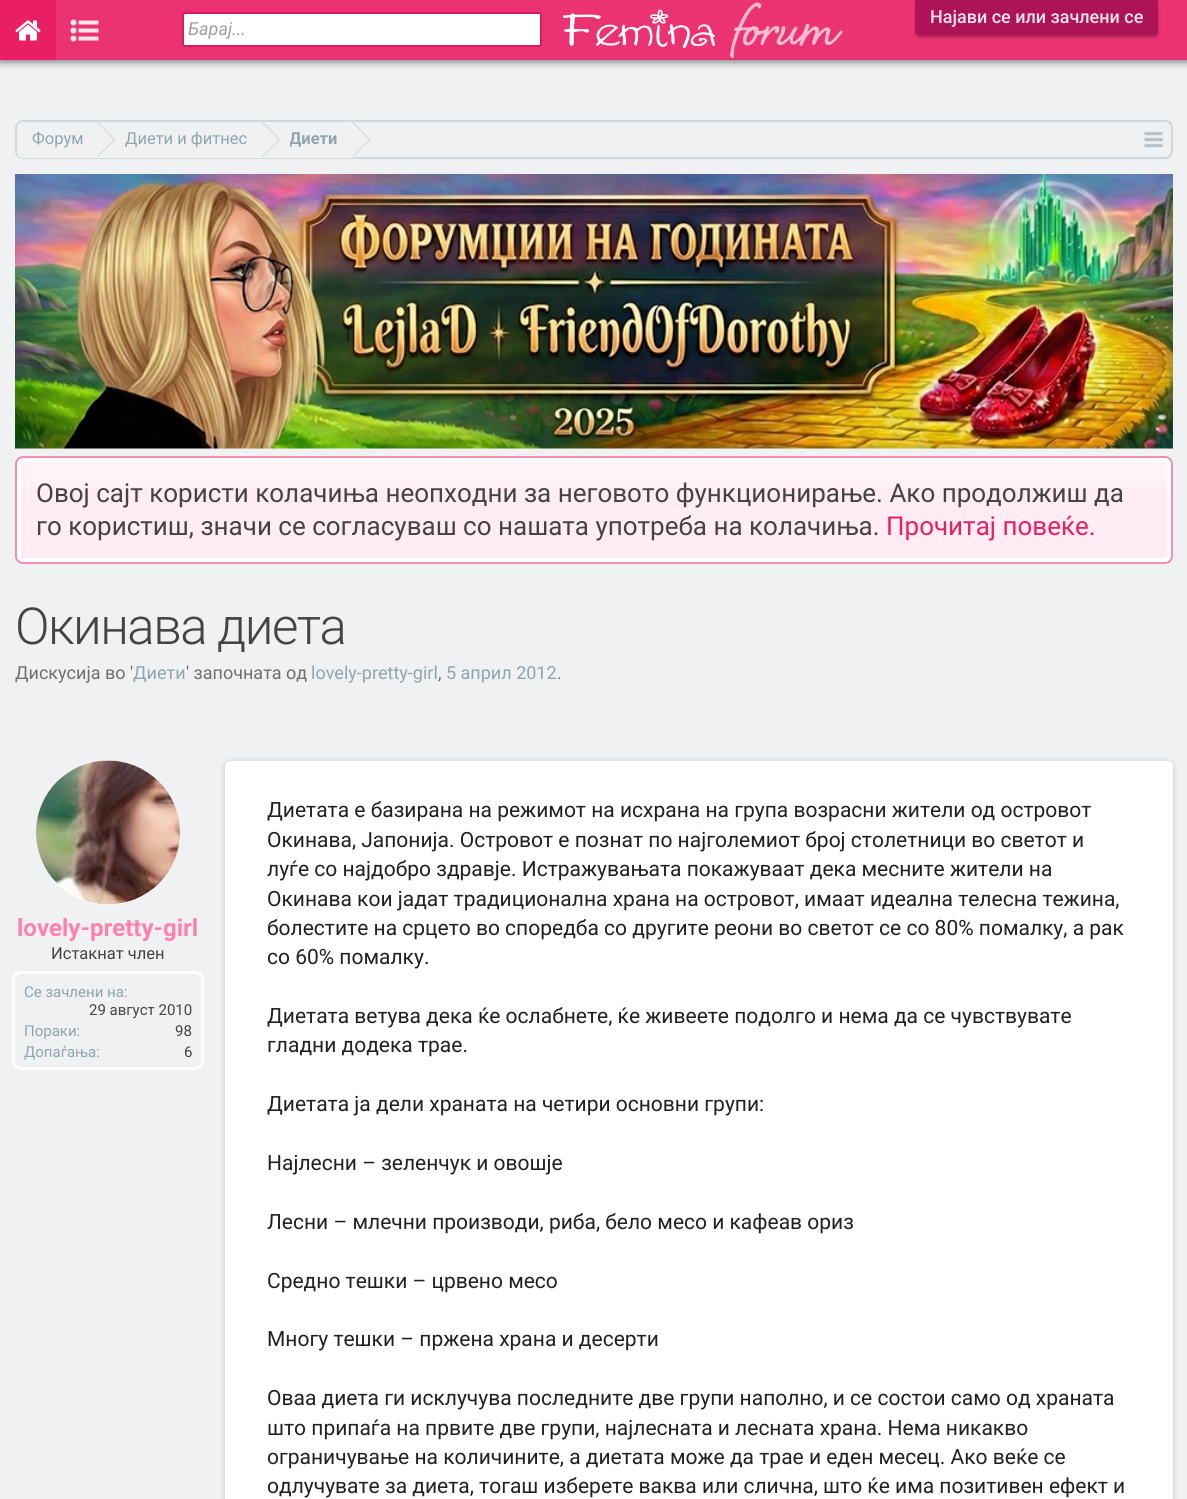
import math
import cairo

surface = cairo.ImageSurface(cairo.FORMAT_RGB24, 1187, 1499)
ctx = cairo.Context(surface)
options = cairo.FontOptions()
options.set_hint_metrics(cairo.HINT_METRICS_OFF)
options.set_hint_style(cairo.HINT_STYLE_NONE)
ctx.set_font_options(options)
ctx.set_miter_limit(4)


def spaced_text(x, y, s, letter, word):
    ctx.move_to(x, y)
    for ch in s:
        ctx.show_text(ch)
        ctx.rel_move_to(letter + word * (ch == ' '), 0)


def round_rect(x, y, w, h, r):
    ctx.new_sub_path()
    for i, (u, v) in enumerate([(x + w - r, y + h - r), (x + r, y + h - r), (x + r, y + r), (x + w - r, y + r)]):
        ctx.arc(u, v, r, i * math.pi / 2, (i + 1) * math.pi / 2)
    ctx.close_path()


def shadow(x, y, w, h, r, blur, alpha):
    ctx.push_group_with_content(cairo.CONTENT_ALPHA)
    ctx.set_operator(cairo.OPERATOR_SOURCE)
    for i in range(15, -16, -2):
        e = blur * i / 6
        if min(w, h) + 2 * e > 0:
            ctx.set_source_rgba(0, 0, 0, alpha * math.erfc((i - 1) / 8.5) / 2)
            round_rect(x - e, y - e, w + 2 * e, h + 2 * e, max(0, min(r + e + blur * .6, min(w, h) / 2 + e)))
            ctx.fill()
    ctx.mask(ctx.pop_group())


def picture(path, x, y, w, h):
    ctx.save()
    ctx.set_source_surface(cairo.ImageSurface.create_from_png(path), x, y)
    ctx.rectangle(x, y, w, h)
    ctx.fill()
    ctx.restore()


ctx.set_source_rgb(0.937, 0.945, 0.953)
ctx.paint()
ctx.set_source_rgb(0, 0, 0)
shadow(0, 2, 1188, 60, 0, 4, 0.5)
ctx.set_source_rgb(0.918, 0.2, 0.443)
ctx.rectangle(56, 0, 1131, 60)
ctx.fill()
ctx.set_source_rgb(0, 0, 0)
shadow(917, 5, 240, 31, 1.5, 2, 0.5)
ctx.set_source_rgb(0.678, 0.078, 0.341)
ctx.new_path()
ctx.move_to(915, 0)
ctx.line_to(1158, 0)
ctx.line_to(1158, 32)
ctx.curve_to(1158, 33.5, 1156.5, 35, 1155, 35)
ctx.line_to(918, 35)
ctx.curve_to(916.5, 35, 915, 33.5, 915, 32)
ctx.close_path()
ctx.fill()
ctx.select_font_face("Roboto Medium")
ctx.set_font_size(18)
ctx.set_source_rgb(0.988, 0.894, 0.925)
ctx.move_to(930, 23)
ctx.show_text("Најави се или зачлени се")
ctx.set_source_rgb(0.914, 0.118, 0.388)
ctx.rectangle(0, 0, 56, 60)
ctx.fill()
picture("img1.png", 15, 20, 26, 21)
picture("img2.png", 70, 19, 29, 23)
ctx.set_source_rgb(1, 1, 1)
round_rect(183, 13, 358, 33, 2)
ctx.fill_preserve()
ctx.set_source_rgb(0.847, 0.106, 0.376)
ctx.stroke()
ctx.select_font_face("Roboto", cairo.FONT_SLANT_ITALIC)
ctx.set_source_rgb(0.627, 0.627, 0.627)
ctx.move_to(188, 35)
ctx.show_text("Барај...")
picture("img3.png", 563, 2, 280, 56)
round_rect(16, 121, 1156, 37, 7)
ctx.set_source_rgb(0.816, 0.847, 0.863)
ctx.stroke()
ctx.save()
round_rect(17, 122, 1155, 36, 6)
ctx.clip()
ctx.set_source_rgb(0.937, 0.945, 0.953)
ctx.new_path()
ctx.move_to(25, 122)
ctx.line_to(98, 122)
ctx.line_to(98, 159)
ctx.line_to(25, 159)
ctx.curve_to(20.5, 159, 17, 155.5, 17, 151)
ctx.line_to(17, 130)
ctx.curve_to(17, 125.5, 20.5, 122, 25, 122)
ctx.close_path()
ctx.fill()
ctx.restore()
ctx.select_font_face("Roboto")
ctx.set_font_size(16.5)
ctx.set_source_rgb(0.565, 0.643, 0.682)
ctx.move_to(32, 144)
ctx.show_text("Форум")
ctx.set_source_rgb(0.937, 0.945, 0.953)
ctx.rectangle(98, 157, 255, 1)
ctx.fill()
ctx.set_source_rgb(0.816, 0.847, 0.863)
ctx.new_path()
ctx.move_to(97.5, 157.5)
ctx.line_to(97.5, 121.5)
ctx.line_to(115.5, 139.5)
ctx.close_path()
ctx.fill()
ctx.set_source_rgb(0.937, 0.945, 0.953)
ctx.new_path()
ctx.move_to(96, 157.5)
ctx.line_to(96, 121.5)
ctx.line_to(114, 139.5)
ctx.close_path()
ctx.fill()
ctx.set_source_rgb(0.565, 0.643, 0.682)
ctx.move_to(125, 144)
ctx.show_text("Диети и фитнес")
ctx.set_source_rgb(0.816, 0.847, 0.863)
ctx.new_path()
ctx.move_to(262.5, 157.5)
ctx.line_to(262.5, 121.5)
ctx.line_to(280.5, 139.5)
ctx.close_path()
ctx.fill()
ctx.set_source_rgb(0.937, 0.945, 0.953)
ctx.new_path()
ctx.move_to(261, 157.5)
ctx.line_to(261, 121.5)
ctx.line_to(279, 139.5)
ctx.close_path()
ctx.fill()
ctx.save()
ctx.rectangle(290, 122, 48, 36)
ctx.clip()
ctx.select_font_face("Roboto", cairo.FONT_SLANT_NORMAL, cairo.FONT_WEIGHT_BOLD)
ctx.set_source_rgb(0.565, 0.643, 0.682)
ctx.move_to(289, 144)
ctx.show_text("Диети")
ctx.restore()
ctx.set_source_rgb(0.816, 0.847, 0.863)
ctx.new_path()
ctx.move_to(352.5, 157.5)
ctx.line_to(352.5, 121.5)
ctx.line_to(370.5, 139.5)
ctx.close_path()
ctx.fill()
ctx.set_source_rgb(0.937, 0.945, 0.953)
ctx.new_path()
ctx.move_to(351, 157.5)
ctx.line_to(351, 121.5)
ctx.line_to(369, 139.5)
ctx.close_path()
ctx.fill()
picture("img4.png", 1144, 131, 19, 17)
picture("img5.png", 15, 174, 1158, 275)
ctx.set_source_rgb(1, 1, 1)
round_rect(16, 457, 1156, 106, 7)
ctx.fill_preserve()
ctx.set_source_rgb(0.957, 0.561, 0.694)
ctx.stroke()
ctx.set_source_rgb(1, 0.929, 0.953)
ctx.rectangle(21, 462, 1146, 96)
ctx.fill()
picture("img6.png", 21, 462, 1146, 25)
ctx.set_font_size(26)
ctx.set_source_rgb(0.267, 0.267, 0.267)
ctx.move_to(36, 502)
ctx.show_text("Овој сајт користи колачиња неопходни за неговото функционирање. Ако продолжиш да")
ctx.move_to(36, 535)
ctx.show_text("го користиш, значи се согласуваш со нашата употреба на колачиња.")
ctx.set_source_rgb(0.914, 0.118, 0.388)
ctx.move_to(886, 535)
ctx.show_text("Прочитај повеќе.")
ctx.select_font_face("Roboto Light")
ctx.set_font_size(51)
ctx.set_source_rgb(0.267, 0.267, 0.267)
spaced_text(15, 644, "Окинава диета", -1.5, 0)
ctx.select_font_face("Roboto")
ctx.set_font_size(18)
ctx.set_source_rgb(0.431, 0.435, 0.439)
ctx.move_to(15, 679)
ctx.show_text("Дискусија во '")
ctx.set_source_rgb(0.565, 0.643, 0.682)
ctx.move_to(133, 679)
ctx.show_text("Диети")
ctx.set_source_rgb(0.431, 0.435, 0.439)
ctx.move_to(186, 679)
ctx.show_text("' започната од")
ctx.set_source_rgb(0.565, 0.643, 0.682)
ctx.move_to(311, 679)
ctx.show_text("lovely-pretty-girl")
ctx.set_source_rgb(0.431, 0.435, 0.439)
ctx.move_to(438, 679)
ctx.show_text(",")
ctx.set_source_rgb(0.565, 0.643, 0.682)
ctx.move_to(446, 679)
ctx.show_text("5 април 2012")
ctx.set_source_rgb(0.431, 0.435, 0.439)
ctx.move_to(557, 679)
ctx.show_text(".")
ctx.set_source_rgb(1, 1, 1)
ctx.new_path()
ctx.arc(108, 833, 72, 0, 2 * math.pi)
ctx.fill()
picture("img7.png", 36, 760, 144, 145)
ctx.select_font_face("Roboto", cairo.FONT_SLANT_NORMAL, cairo.FONT_WEIGHT_BOLD)
ctx.set_font_size(24)
ctx.set_source_rgb(1, 0.502, 0.671)
ctx.move_to(17, 936)
ctx.show_text("lovely-pretty-girl")
ctx.select_font_face("Roboto")
ctx.set_font_size(16.5)
ctx.set_source_rgb(0.267, 0.267, 0.267)
ctx.move_to(51, 959)
ctx.show_text("Истакнат член")
round_rect(13.5, 972.5, 189, 96, 7.5)
ctx.set_source_rgb(1, 1, 1)
ctx.set_line_width(3)
ctx.stroke()
ctx.set_font_size(15)
ctx.set_source_rgb(0.565, 0.643, 0.682)
ctx.move_to(24, 997)
ctx.show_text("Се зачлени на:")
ctx.set_source_rgb(0.267, 0.267, 0.267)
ctx.move_to(89, 1015)
ctx.show_text("29 август 2010")
ctx.set_source_rgb(0.565, 0.643, 0.682)
ctx.move_to(24, 1036)
ctx.show_text("Пораки:")
ctx.set_source_rgb(0.267, 0.267, 0.267)
ctx.move_to(175, 1036)
ctx.show_text("98")
ctx.set_source_rgb(0.565, 0.643, 0.682)
ctx.move_to(24, 1057)
ctx.show_text("Допаѓања:")
ctx.set_source_rgb(0.267, 0.267, 0.267)
ctx.move_to(184, 1057)
ctx.show_text("6")
ctx.set_source_rgb(0, 0, 0)
shadow(225, 762, 948, 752, 6, 3, 0.2)
ctx.set_source_rgb(1, 1, 1)
round_rect(225, 761, 948, 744, 6)
ctx.fill()
ctx.set_font_size(21)
ctx.set_source_rgb(0.129, 0.129, 0.129)
ctx.move_to(267, 817)
ctx.show_text("Диетата е базирана на режимот на исхрана на група возрасни жители од островот")
ctx.move_to(267, 847)
ctx.show_text("Окинава, Јапонија. Островот е познат по најголемиот број столетници во светот и")
ctx.move_to(267, 876)
ctx.show_text("луѓе со најдобро здравје. Истражувањата покажуваат дека месните жители на")
ctx.move_to(267, 906)
ctx.show_text("Окинава кои јадат традиционална храна на островот, имаат идеална телесна тежина,")
ctx.move_to(267, 935)
ctx.show_text("болестите на срцето во споредба со другите реони во светот се со 80% помалку, а рак")
ctx.move_to(267, 964)
ctx.show_text("со 60% помалку.")
ctx.move_to(267, 1023)
ctx.show_text("Диетата ветува дека ќе ослабнете, ќе живеете подолго и нема да се чувствувате")
ctx.move_to(267, 1052)
ctx.show_text("гладни додека трае.")
ctx.move_to(267, 1111)
ctx.show_text("Диетата ја дели храната на четири основни групи:")
ctx.move_to(267, 1170)
ctx.show_text("Најлесни – зеленчук и овошје")
ctx.move_to(267, 1229)
ctx.show_text("Лесни – млечни производи, риба, бело месо и кафеав ориз")
ctx.move_to(267, 1288)
ctx.show_text("Средно тешки – црвено месо")
ctx.move_to(267, 1346)
ctx.show_text("Многу тешки – пржена храна и десерти")
ctx.move_to(267, 1405)
ctx.show_text("Оваа диета ги исклучува последните две групи наполно, и се состои само од храната")
ctx.move_to(267, 1435)
ctx.show_text("што припаѓа на првите две групи, најлесната и лесната храна. Нема никакво")
ctx.move_to(267, 1464)
ctx.show_text("ограничување на количините, а диетата може да трае и еден месец. Ако веќе се")
ctx.move_to(267, 1493)
ctx.show_text("одлучувате за диета, тогаш изберете ваква или слична, што ќе има позитивен ефект и")
surface.write_to_png("page.png")
